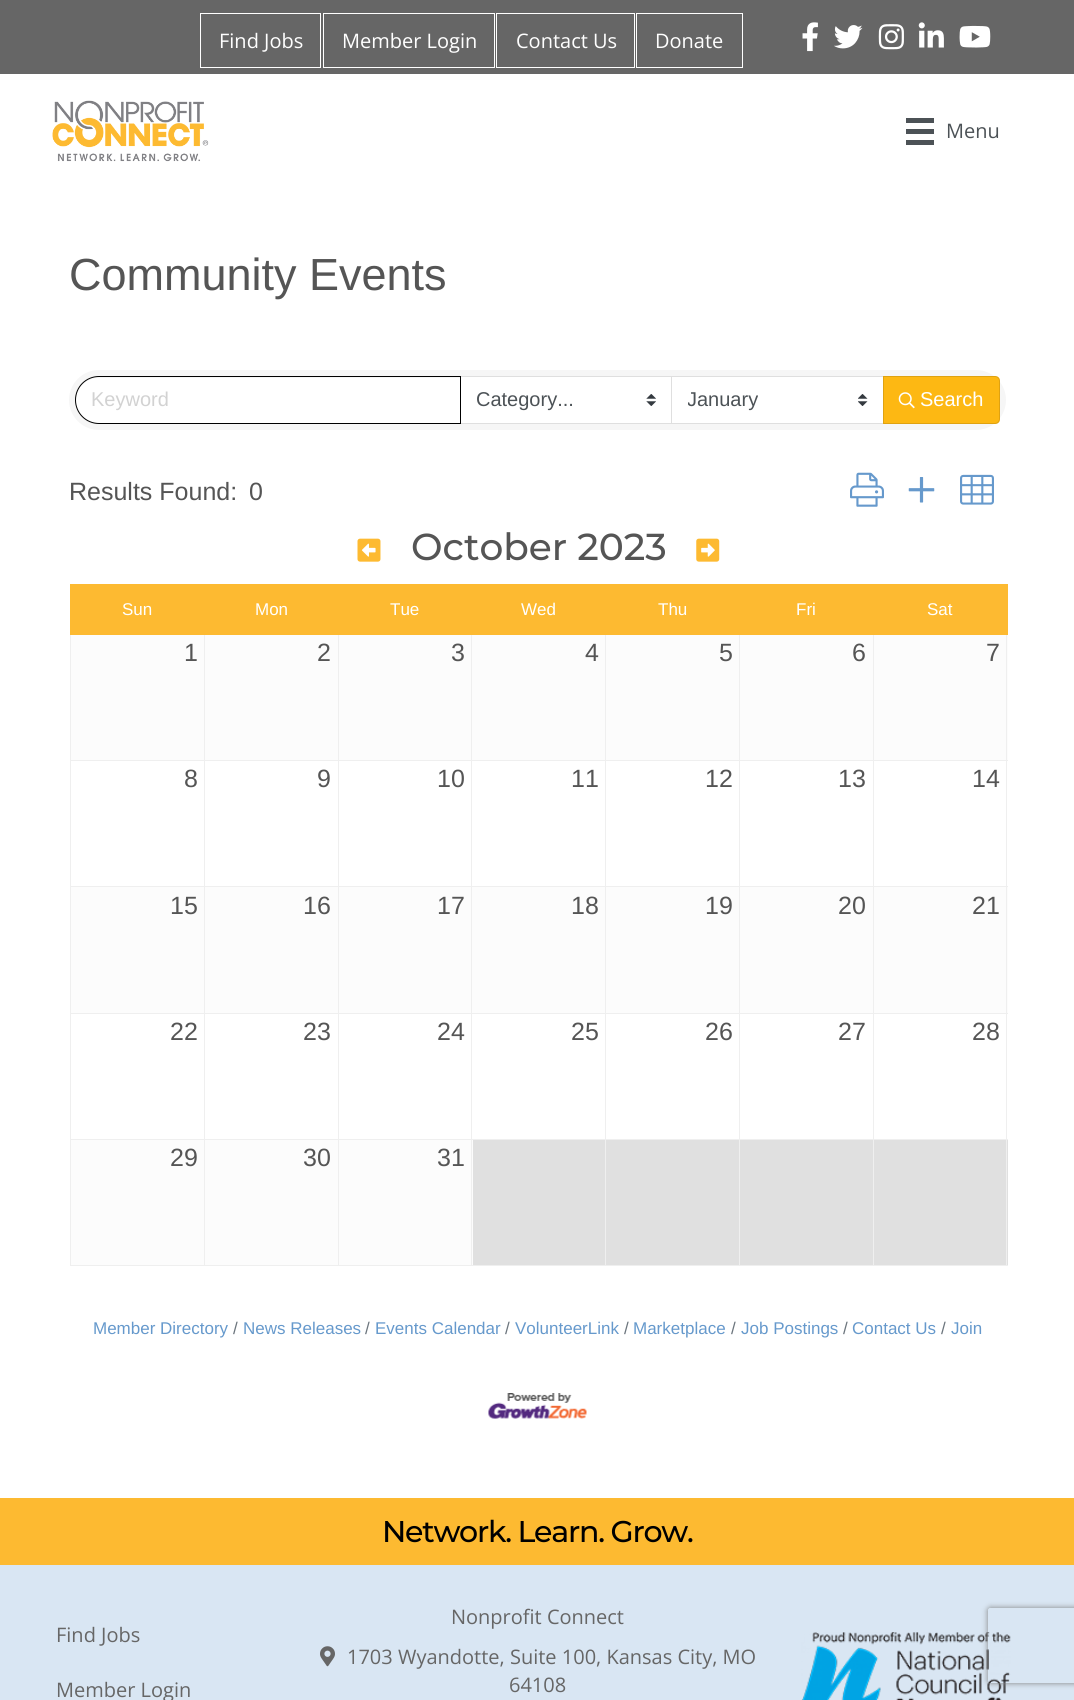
import math
import cairo

surface = cairo.ImageSurface(cairo.FORMAT_RGB24, 1074, 1700)
ctx = cairo.Context(surface)
options = cairo.FontOptions()
options.set_hint_metrics(cairo.HINT_METRICS_OFF)
options.set_hint_style(cairo.HINT_STYLE_NONE)
ctx.set_font_options(options)
ctx.set_miter_limit(4)


def spaced_text(x, y, s, letter, word):
    ctx.move_to(x, y)
    for ch in s:
        ctx.show_text(ch)
        ctx.rel_move_to(letter + word * (ch == ' '), 0)


def round_rect(x, y, w, h, r):
    ctx.new_sub_path()
    for i, (u, v) in enumerate([(x + w - r, y + h - r), (x + r, y + h - r), (x + r, y + r), (x + w - r, y + r)]):
        ctx.arc(u, v, r, i * math.pi / 2, (i + 1) * math.pi / 2)
    ctx.close_path()


def shadow(x, y, w, h, r, blur, alpha):
    ctx.push_group_with_content(cairo.CONTENT_ALPHA)
    ctx.set_operator(cairo.OPERATOR_SOURCE)
    for i in range(15, -16, -2):
        e = blur * i / 6
        if min(w, h) + 2 * e > 0:
            ctx.set_source_rgba(0, 0, 0, alpha * math.erfc((i - 1) / 8.5) / 2)
            round_rect(x - e, y - e, w + 2 * e, h + 2 * e, max(0, min(r + e + blur * .6, min(w, h) / 2 + e)))
            ctx.fill()
    ctx.mask(ctx.pop_group())


def picture(path, x, y, w, h):
    ctx.save()
    ctx.set_source_surface(cairo.ImageSurface.create_from_png(path), x, y)
    ctx.rectangle(x, y, w, h)
    ctx.fill()
    ctx.restore()


ctx.set_source_rgb(1, 1, 1)
ctx.paint()
ctx.set_source_rgb(0.4, 0.4, 0.4)
ctx.rectangle(0, 0, 1074, 74)
ctx.fill()
ctx.rectangle(200.5, 13.5, 120, 54)
ctx.set_source_rgb(1, 1, 1)
ctx.set_line_width(1)
ctx.stroke()
ctx.select_font_face("Open Sans")
ctx.set_font_size(20)
ctx.move_to(219, 48)
ctx.show_text("Find Jobs")
ctx.rectangle(323.5, 13.5, 171, 54)
ctx.stroke()
ctx.move_to(342, 48)
ctx.show_text("Member Login")
ctx.rectangle(496.5, 13.5, 138, 54)
ctx.stroke()
ctx.move_to(516, 48)
ctx.show_text("Contact Us")
ctx.rectangle(636.5, 13.5, 106, 54)
ctx.stroke()
ctx.move_to(655, 48)
ctx.show_text("Donate")
picture("img1.png", 802, 22, 16, 30)
picture("img2.png", 834, 25, 29, 24)
picture("img3.png", 878, 24, 26, 26)
picture("img4.png", 918, 22, 26, 26)
picture("img5.png", 959, 25, 32, 23)
picture("img6.png", 52, 100, 157, 62)
ctx.set_source_rgb(0.298, 0.322, 0.337)
ctx.rectangle(906, 118, 28, 5)
ctx.fill()
ctx.rectangle(906, 129, 28, 5)
ctx.fill()
ctx.rectangle(906, 140, 28, 5)
ctx.fill()
ctx.move_to(946, 138)
ctx.show_text("Menu")
ctx.select_font_face("Liberation Sans")
ctx.set_font_size(45)
ctx.set_source_rgb(0.333, 0.333, 0.333)
ctx.move_to(69, 290)
ctx.show_text("Community Events")
ctx.set_source_rgb(0.961, 0.961, 0.961)
round_rect(69, 370, 937, 60, 30)
ctx.fill()
ctx.set_source_rgb(1, 1, 1)
ctx.new_path()
ctx.move_to(98.5, 378)
ctx.line_to(460, 378)
ctx.line_to(460, 423)
ctx.line_to(98.5, 423)
ctx.curve_to(86, 423, 76, 413, 76, 400.5)
ctx.curve_to(76, 388, 86, 378, 98.5, 378)
ctx.close_path()
ctx.fill()
ctx.rectangle(461, 377, 210, 46)
ctx.fill()
picture("img7.png", 646, 394, 10, 12)
ctx.rectangle(460.5, 376.5, 212, 47)
ctx.set_source_rgb(0.875, 0.875, 0.875)
ctx.stroke()
ctx.new_path()
ctx.move_to(99, 376.5)
ctx.line_to(460.5, 376.5)
ctx.line_to(460.5, 423.5)
ctx.line_to(99, 423.5)
ctx.curve_to(86, 423.5, 75.5, 413, 75.5, 400)
ctx.curve_to(75.5, 387, 86, 376.5, 99, 376.5)
ctx.close_path()
ctx.set_source_rgb(0, 0, 0)
ctx.stroke()
ctx.set_font_size(20)
ctx.set_source_rgb(0.824, 0.824, 0.824)
ctx.move_to(91, 406)
ctx.show_text("Keyword")
ctx.set_source_rgb(0.298, 0.322, 0.337)
ctx.move_to(476, 406)
ctx.show_text("Category...")
ctx.set_source_rgb(1, 1, 1)
ctx.rectangle(672, 377, 211, 46)
ctx.fill()
picture("img8.png", 858, 394, 10, 12)
ctx.rectangle(671.5, 376.5, 212, 47)
ctx.set_source_rgb(0.875, 0.875, 0.875)
ctx.stroke()
ctx.save()
ctx.rectangle(688, 385, 180, 30)
ctx.clip()
ctx.set_source_rgb(0.298, 0.322, 0.337)
ctx.move_to(687, 406)
ctx.show_text("January")
ctx.restore()
ctx.set_source_rgb(0.992, 0.722, 0.075)
ctx.new_path()
ctx.move_to(883, 376)
ctx.line_to(995, 376)
ctx.curve_to(998, 376, 1000, 378, 1000, 381)
ctx.line_to(1000, 419)
ctx.curve_to(1000, 422, 998, 424, 995, 424)
ctx.line_to(883, 424)
ctx.close_path()
ctx.fill()
ctx.new_path()
ctx.move_to(883.5, 376.5)
ctx.line_to(995, 376.5)
ctx.curve_to(997.5, 376.5, 999.5, 378.5, 999.5, 381)
ctx.line_to(999.5, 419)
ctx.curve_to(999.5, 421.5, 997.5, 423.5, 995, 423.5)
ctx.line_to(883.5, 423.5)
ctx.close_path()
ctx.set_source_rgba(0, 0, 0, 0.12)
ctx.stroke()
picture("img9.png", 898, 392, 17, 17)
ctx.set_source_rgb(1, 1, 1)
ctx.move_to(920, 406)
ctx.show_text("Search")
ctx.set_font_size(25)
ctx.set_source_rgb(0.333, 0.333, 0.333)
ctx.move_to(69, 500)
ctx.show_text("Results Found:")
ctx.move_to(249, 500)
ctx.show_text("0")
picture("img10.png", 850, 472, 34, 35)
picture("img11.png", 908, 477, 27, 26)
picture("img12.png", 960, 474, 34, 31)
picture("img13.png", 357, 538, 24, 24)
ctx.select_font_face("Montserrat Thin")
ctx.set_font_size(37.5)
ctx.move_to(411, 560)
ctx.show_text("October 2023")
picture("img14.png", 696, 538, 24, 24)
ctx.set_source_rgb(0.992, 0.729, 0.192)
ctx.rectangle(71, 585, 134, 49)
ctx.fill()
ctx.rectangle(70, 584, 135, 1)
ctx.fill()
ctx.set_source_rgb(0.988, 0.988, 0.988)
ctx.rectangle(71, 635, 937, 125)
ctx.fill()
ctx.set_source_rgb(0.937, 0.937, 0.937)
ctx.rectangle(873, 760, 135, 1)
ctx.fill()
ctx.set_source_rgb(0.988, 0.988, 0.988)
ctx.rectangle(71, 887, 937, 126)
ctx.fill()
ctx.set_source_rgb(0.937, 0.937, 0.937)
ctx.rectangle(873, 886, 135, 1)
ctx.fill()
ctx.rectangle(873, 1013, 135, 1)
ctx.fill()
ctx.rectangle(873, 1139, 135, 1)
ctx.fill()
ctx.set_source_rgb(0.878, 0.878, 0.878)
ctx.rectangle(874, 1140, 134, 125)
ctx.fill()
ctx.set_source_rgb(0.937, 0.937, 0.937)
ctx.rectangle(1006, 1139, 1, 127)
ctx.fill()
ctx.rectangle(873, 1265, 135, 1)
ctx.fill()
ctx.rectangle(873, 1139, 1, 127)
ctx.fill()
ctx.rectangle(739, 1139, 135, 1)
ctx.fill()
ctx.rectangle(873, 1013, 1, 127)
ctx.fill()
ctx.rectangle(739, 1013, 135, 1)
ctx.fill()
ctx.rectangle(873, 886, 1, 128)
ctx.fill()
ctx.rectangle(739, 886, 135, 1)
ctx.fill()
ctx.rectangle(873, 760, 1, 128)
ctx.fill()
ctx.rectangle(739, 760, 135, 1)
ctx.fill()
ctx.rectangle(739, 1265, 135, 1)
ctx.fill()
ctx.rectangle(739, 1139, 1, 127)
ctx.fill()
ctx.rectangle(605, 1139, 135, 1)
ctx.fill()
ctx.rectangle(739, 1013, 1, 127)
ctx.fill()
ctx.rectangle(605, 1013, 135, 1)
ctx.fill()
ctx.rectangle(739, 886, 1, 128)
ctx.fill()
ctx.rectangle(605, 886, 135, 1)
ctx.fill()
ctx.rectangle(739, 760, 1, 128)
ctx.fill()
ctx.rectangle(605, 760, 135, 1)
ctx.fill()
ctx.rectangle(605, 1265, 135, 1)
ctx.fill()
ctx.rectangle(605, 1139, 1, 127)
ctx.fill()
ctx.rectangle(471, 1139, 135, 1)
ctx.fill()
ctx.rectangle(605, 1013, 1, 127)
ctx.fill()
ctx.rectangle(471, 1013, 135, 1)
ctx.fill()
ctx.rectangle(605, 886, 1, 128)
ctx.fill()
ctx.rectangle(471, 886, 135, 1)
ctx.fill()
ctx.rectangle(605, 760, 1, 128)
ctx.fill()
ctx.rectangle(471, 760, 135, 1)
ctx.fill()
ctx.set_source_rgb(0.988, 0.988, 0.988)
ctx.rectangle(71, 1140, 402, 125)
ctx.fill()
ctx.set_source_rgb(0.937, 0.937, 0.937)
ctx.rectangle(471, 1265, 135, 1)
ctx.fill()
ctx.rectangle(471, 1139, 1, 127)
ctx.fill()
ctx.rectangle(338, 1139, 135, 1)
ctx.fill()
ctx.rectangle(471, 1013, 1, 127)
ctx.fill()
ctx.rectangle(338, 1013, 135, 1)
ctx.fill()
ctx.rectangle(471, 886, 1, 128)
ctx.fill()
ctx.rectangle(338, 886, 135, 1)
ctx.fill()
ctx.rectangle(471, 760, 1, 128)
ctx.fill()
ctx.rectangle(338, 760, 135, 1)
ctx.fill()
ctx.rectangle(338, 1265, 135, 1)
ctx.fill()
ctx.rectangle(338, 1139, 1, 127)
ctx.fill()
ctx.rectangle(204, 1139, 135, 1)
ctx.fill()
ctx.rectangle(338, 1013, 1, 127)
ctx.fill()
ctx.rectangle(204, 1013, 135, 1)
ctx.fill()
ctx.rectangle(338, 886, 1, 128)
ctx.fill()
ctx.rectangle(204, 886, 135, 1)
ctx.fill()
ctx.rectangle(338, 760, 1, 128)
ctx.fill()
ctx.rectangle(204, 760, 135, 1)
ctx.fill()
ctx.rectangle(204, 1265, 135, 1)
ctx.fill()
ctx.rectangle(204, 1139, 1, 127)
ctx.fill()
ctx.rectangle(70, 1139, 135, 1)
ctx.fill()
ctx.rectangle(204, 1013, 1, 127)
ctx.fill()
ctx.rectangle(70, 1013, 135, 1)
ctx.fill()
ctx.rectangle(204, 886, 1, 128)
ctx.fill()
ctx.rectangle(70, 886, 135, 1)
ctx.fill()
ctx.rectangle(204, 760, 1, 128)
ctx.fill()
ctx.rectangle(70, 760, 135, 1)
ctx.fill()
ctx.rectangle(204, 634, 1, 127)
ctx.fill()
ctx.rectangle(338, 634, 1, 127)
ctx.fill()
ctx.rectangle(471, 634, 1, 127)
ctx.fill()
ctx.rectangle(605, 634, 1, 127)
ctx.fill()
ctx.rectangle(739, 634, 1, 127)
ctx.fill()
ctx.rectangle(873, 634, 1, 127)
ctx.fill()
ctx.rectangle(70, 1265, 135, 1)
ctx.fill()
ctx.rectangle(70, 1139, 1, 127)
ctx.fill()
ctx.rectangle(70, 1013, 1, 127)
ctx.fill()
ctx.rectangle(70, 886, 1, 128)
ctx.fill()
ctx.rectangle(70, 634, 1, 254)
ctx.fill()
ctx.rectangle(1006, 1013, 1, 127)
ctx.fill()
ctx.rectangle(1006, 886, 1, 128)
ctx.fill()
ctx.rectangle(1006, 634, 1, 254)
ctx.fill()
ctx.set_source_rgb(0.992, 0.729, 0.192)
ctx.rectangle(70, 634, 938, 1)
ctx.fill()
ctx.rectangle(70, 584, 1, 51)
ctx.fill()
ctx.select_font_face("Liberation Sans")
ctx.set_font_size(17)
ctx.set_source_rgb(1, 1, 1)
ctx.move_to(122, 615)
ctx.show_text("Sun")
ctx.set_source_rgb(0.992, 0.729, 0.192)
ctx.rectangle(205, 584, 803, 50)
ctx.fill()
ctx.set_source_rgb(1, 1, 1)
ctx.move_to(255, 615)
ctx.show_text("Mon")
ctx.move_to(390, 615)
ctx.show_text("Tue")
ctx.move_to(521, 615)
ctx.show_text("Wed")
ctx.move_to(658, 615)
ctx.show_text("Thu")
ctx.move_to(796, 615)
ctx.show_text("Fri")
ctx.move_to(927, 615)
ctx.show_text("Sat")
ctx.set_font_size(25)
ctx.set_source_rgb(0.333, 0.333, 0.333)
ctx.move_to(184, 661)
ctx.show_text("1")
ctx.move_to(317, 661)
ctx.show_text("2")
ctx.move_to(451, 661)
ctx.show_text("3")
ctx.move_to(585, 661)
ctx.show_text("4")
ctx.move_to(719, 661)
ctx.show_text("5")
ctx.move_to(852, 661)
ctx.show_text("6")
ctx.move_to(986, 661)
ctx.show_text("7")
ctx.move_to(184, 787)
ctx.show_text("8")
ctx.move_to(317, 787)
ctx.show_text("9")
ctx.move_to(437, 787)
ctx.show_text("10")
ctx.move_to(571, 787)
ctx.show_text("11")
ctx.move_to(705, 787)
ctx.show_text("12")
ctx.move_to(838, 787)
ctx.show_text("13")
ctx.move_to(972, 787)
ctx.show_text("14")
ctx.move_to(170, 914)
ctx.show_text("15")
ctx.move_to(303, 914)
ctx.show_text("16")
ctx.move_to(437, 914)
ctx.show_text("17")
ctx.move_to(571, 914)
ctx.show_text("18")
ctx.move_to(705, 914)
ctx.show_text("19")
ctx.move_to(838, 914)
ctx.show_text("20")
ctx.move_to(972, 914)
ctx.show_text("21")
ctx.move_to(170, 1040)
ctx.show_text("22")
ctx.move_to(303, 1040)
ctx.show_text("23")
ctx.move_to(437, 1040)
ctx.show_text("24")
ctx.move_to(571, 1040)
ctx.show_text("25")
ctx.move_to(705, 1040)
ctx.show_text("26")
ctx.move_to(838, 1040)
ctx.show_text("27")
ctx.move_to(972, 1040)
ctx.show_text("28")
ctx.move_to(170, 1166)
ctx.show_text("29")
ctx.move_to(303, 1166)
ctx.show_text("30")
ctx.move_to(437, 1166)
ctx.show_text("31")
ctx.set_source_rgb(0.878, 0.878, 0.878)
ctx.rectangle(473, 1140, 132, 125)
ctx.fill()
ctx.rectangle(606, 1140, 133, 125)
ctx.fill()
ctx.rectangle(740, 1140, 133, 125)
ctx.fill()
ctx.set_font_size(17)
ctx.set_source_rgb(0.4, 0.6, 0.8)
ctx.move_to(93, 1334)
ctx.show_text("Member Directory")
ctx.set_source_rgb(0.424, 0.459, 0.49)
ctx.move_to(233, 1334)
ctx.show_text("/")
ctx.set_source_rgb(0.4, 0.6, 0.8)
ctx.move_to(243, 1334)
ctx.show_text("News Releases")
ctx.set_source_rgb(0.424, 0.459, 0.49)
ctx.move_to(365, 1334)
ctx.show_text("/")
ctx.set_source_rgb(0.4, 0.6, 0.8)
ctx.move_to(375, 1334)
ctx.show_text("Events Calendar")
ctx.set_source_rgb(0.424, 0.459, 0.49)
ctx.move_to(505, 1334)
ctx.show_text("/")
ctx.set_source_rgb(0.4, 0.6, 0.8)
ctx.move_to(515, 1334)
ctx.show_text("VolunteerLink")
ctx.set_source_rgb(0.424, 0.459, 0.49)
ctx.move_to(624, 1334)
ctx.show_text("/")
ctx.set_source_rgb(0.4, 0.6, 0.8)
ctx.move_to(633, 1334)
ctx.show_text("Marketplace")
ctx.set_source_rgb(0.424, 0.459, 0.49)
ctx.move_to(731, 1334)
ctx.show_text("/")
ctx.set_source_rgb(0.4, 0.6, 0.8)
ctx.move_to(741, 1334)
ctx.show_text("Job Postings")
ctx.set_source_rgb(0.424, 0.459, 0.49)
ctx.move_to(843, 1334)
ctx.show_text("/")
ctx.set_source_rgb(0.4, 0.6, 0.8)
ctx.move_to(852, 1334)
ctx.show_text("Contact Us")
ctx.set_source_rgb(0.424, 0.459, 0.49)
ctx.move_to(941, 1334)
ctx.show_text("/")
ctx.set_source_rgb(0.4, 0.6, 0.8)
ctx.move_to(951, 1334)
ctx.show_text("Join")
picture("img15.png", 488, 1393, 99, 26)
ctx.set_source_rgb(0.992, 0.729, 0.192)
ctx.rectangle(0, 1498, 1074, 67)
ctx.fill()
ctx.select_font_face("Montserrat Thin")
ctx.set_font_size(30)
ctx.set_source_rgb(0, 0, 0)
spaced_text(382, 1542, "Network. Learn. Grow.", -1.25, 0)
ctx.set_source_rgb(0.851, 0.902, 0.953)
ctx.rectangle(0, 1565, 1074, 135)
ctx.fill()
ctx.select_font_face("Open Sans")
ctx.set_font_size(20)
ctx.set_source_rgb(0.4, 0.4, 0.4)
ctx.move_to(56, 1642)
ctx.show_text("Find Jobs")
ctx.move_to(56, 1697)
ctx.show_text("Member Login")
ctx.move_to(451, 1624)
ctx.show_text("Nonprofit Connect")
picture("img16.png", 320, 1646, 15, 21)
ctx.move_to(347, 1664)
ctx.show_text("1703 Wyandotte, Suite 100, Kansas City, MO")
ctx.move_to(509, 1692)
ctx.show_text("64108")
picture("img17.png", 801, 1632, 210, 68)
ctx.save()
ctx.set_fill_rule(cairo.FILL_RULE_EVEN_ODD)
ctx.new_path()
ctx.move_to(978, 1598)
ctx.line_to(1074, 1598)
ctx.line_to(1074, 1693)
ctx.line_to(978, 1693)
ctx.close_path()
ctx.move_to(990.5, 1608)
ctx.line_to(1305.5, 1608)
ctx.curve_to(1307, 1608, 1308, 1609, 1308, 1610.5)
ctx.line_to(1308, 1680.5)
ctx.curve_to(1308, 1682, 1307, 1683, 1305.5, 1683)
ctx.line_to(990.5, 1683)
ctx.curve_to(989, 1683, 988, 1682, 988, 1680.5)
ctx.line_to(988, 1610.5)
ctx.curve_to(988, 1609, 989, 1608, 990.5, 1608)
ctx.close_path()
ctx.clip()
ctx.set_source_rgb(0.502, 0.502, 0.502)
shadow(988, 1608, 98, 75, 2.5, 3, 1)
ctx.restore()
surface.write_to_png("page.png")
